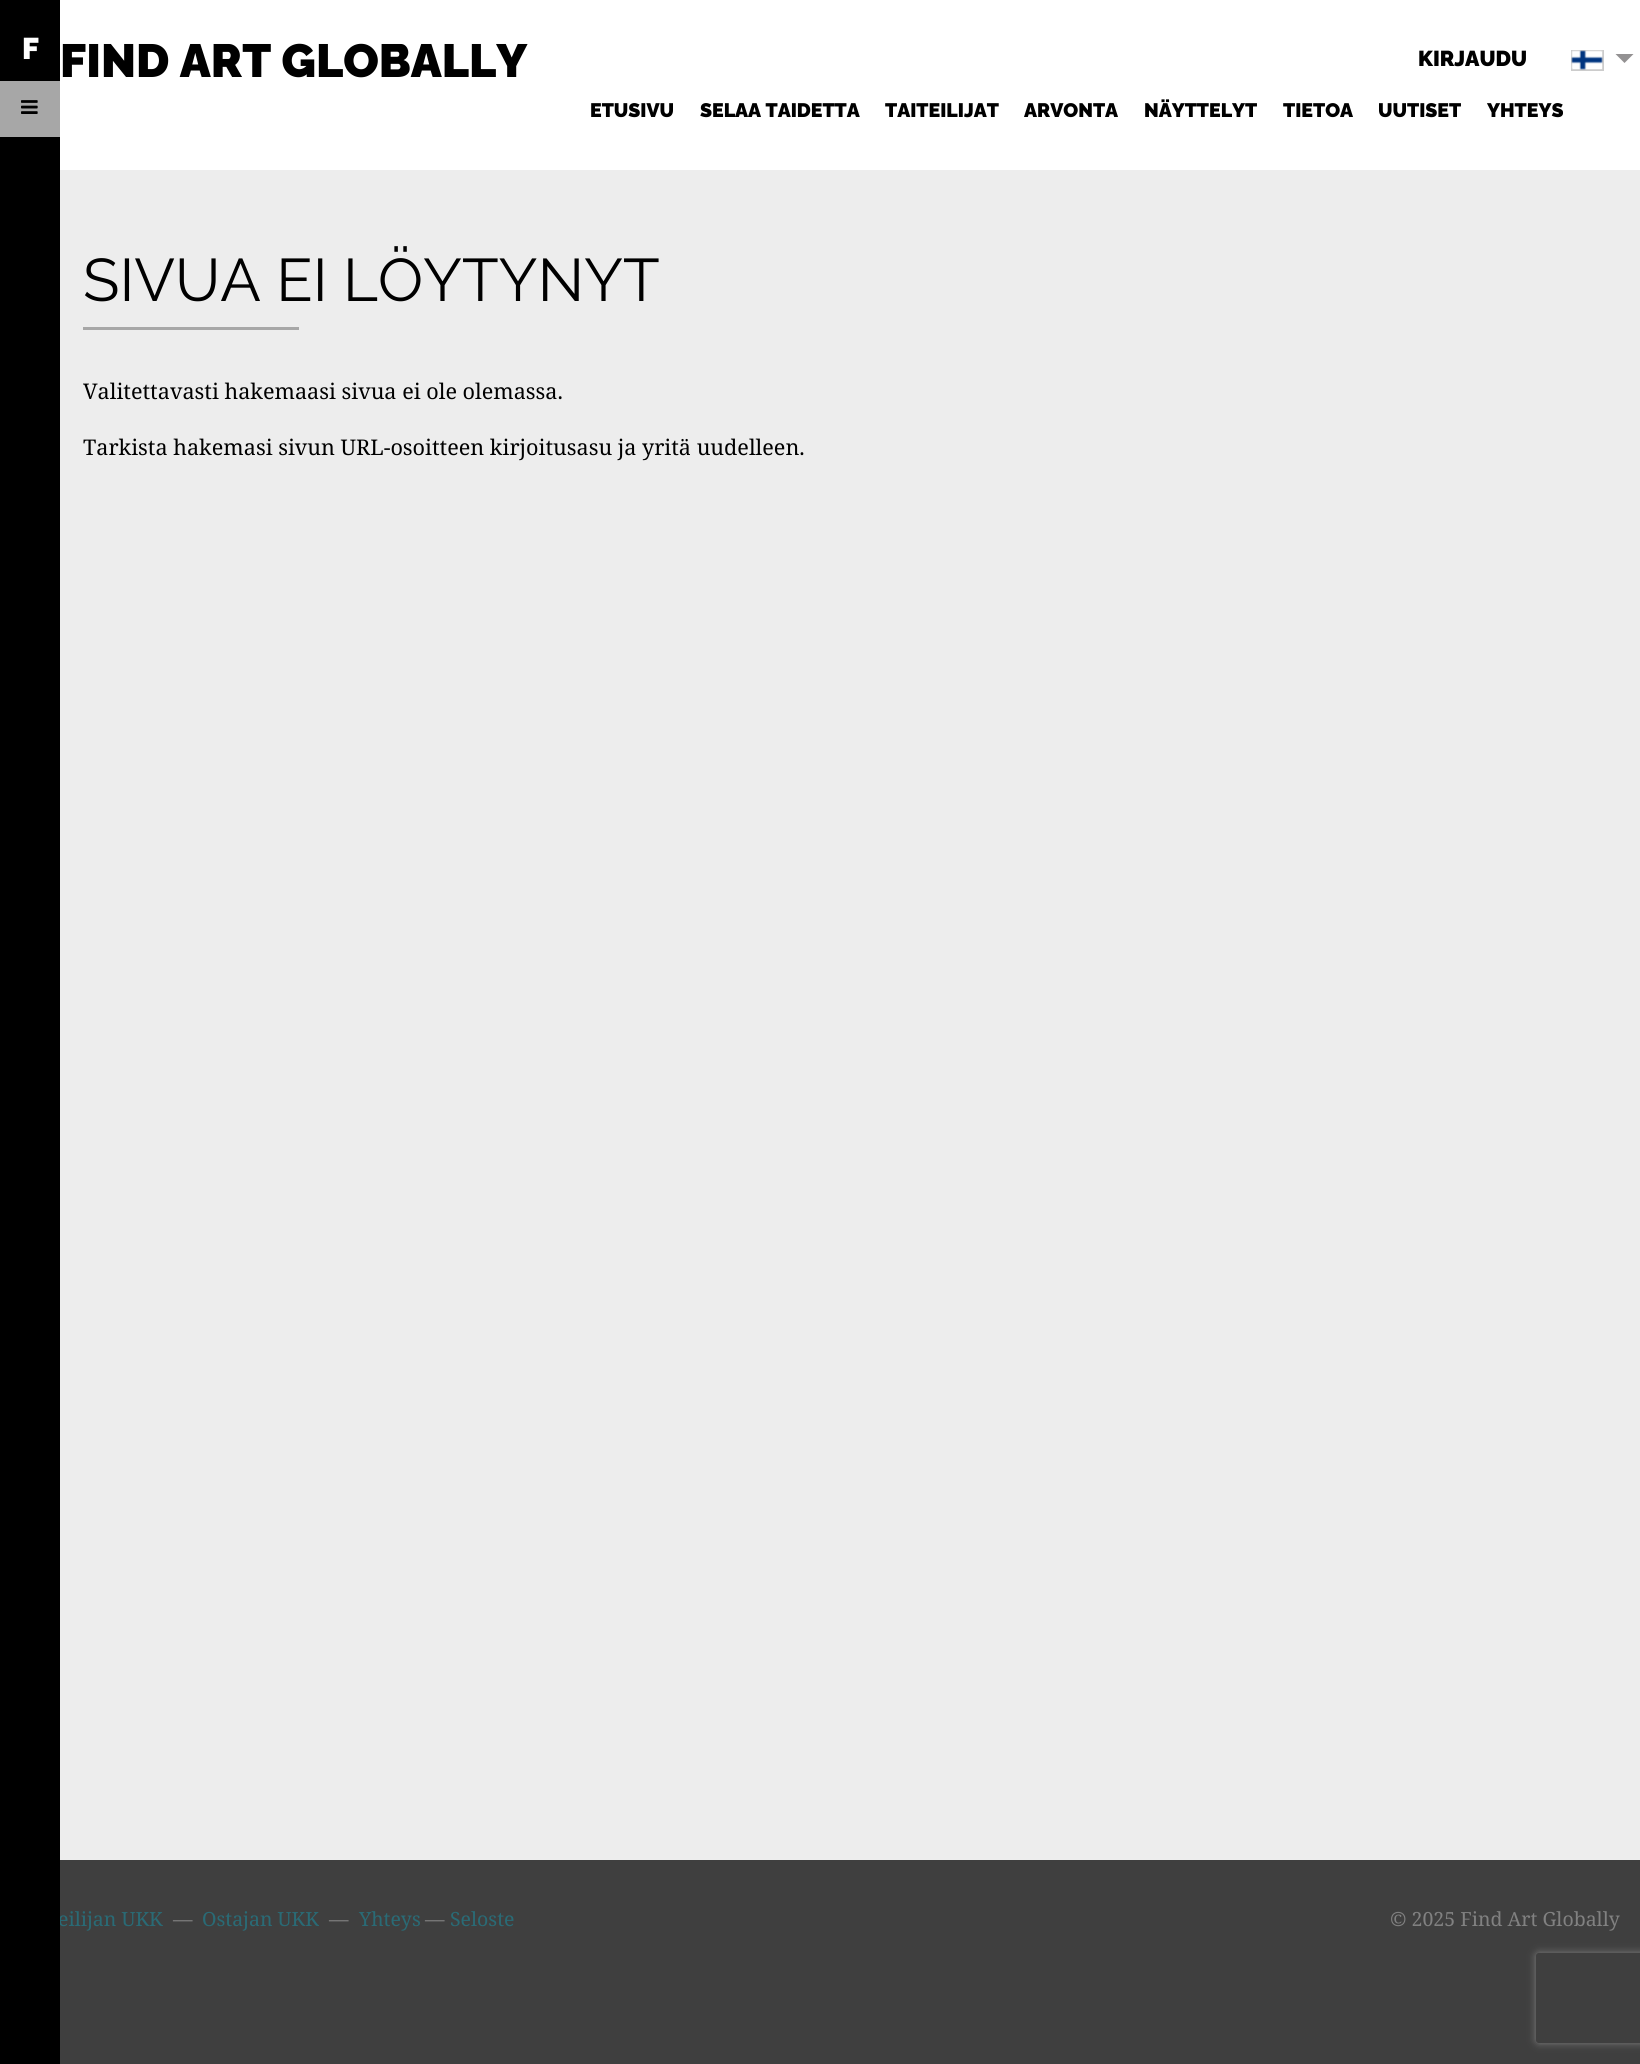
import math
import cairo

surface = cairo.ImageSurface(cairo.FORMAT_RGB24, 1640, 2064)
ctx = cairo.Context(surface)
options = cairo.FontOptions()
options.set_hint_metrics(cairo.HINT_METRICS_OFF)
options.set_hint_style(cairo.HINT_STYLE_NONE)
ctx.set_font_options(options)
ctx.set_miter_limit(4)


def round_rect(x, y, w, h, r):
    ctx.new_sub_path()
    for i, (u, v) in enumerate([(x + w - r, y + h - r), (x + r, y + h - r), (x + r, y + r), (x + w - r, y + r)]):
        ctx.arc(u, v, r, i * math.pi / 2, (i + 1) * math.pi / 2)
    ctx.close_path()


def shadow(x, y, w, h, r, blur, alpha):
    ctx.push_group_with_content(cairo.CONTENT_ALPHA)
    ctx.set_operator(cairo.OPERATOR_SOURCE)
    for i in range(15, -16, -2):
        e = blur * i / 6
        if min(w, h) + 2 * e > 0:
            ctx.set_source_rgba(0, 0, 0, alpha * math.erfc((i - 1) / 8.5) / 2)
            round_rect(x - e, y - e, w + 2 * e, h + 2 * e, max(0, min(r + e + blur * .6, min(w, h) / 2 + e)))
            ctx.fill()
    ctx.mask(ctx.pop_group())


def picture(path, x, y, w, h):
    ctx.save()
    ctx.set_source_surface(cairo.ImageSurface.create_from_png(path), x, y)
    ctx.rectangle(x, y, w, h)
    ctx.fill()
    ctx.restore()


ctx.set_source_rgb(0.929, 0.929, 0.929)
ctx.paint()
ctx.set_source_rgb(0.247, 0.247, 0.247)
ctx.rectangle(60, 1860, 1580, 204)
ctx.fill()
ctx.select_font_face("Noto Serif")
ctx.set_font_size(19.5)
ctx.set_source_rgb(0.161, 0.42, 0.463)
ctx.move_to(58, 1926)
ctx.show_text("eilijan UKK")
ctx.set_source_rgb(0, 0, 0)
ctx.rectangle(0, 0, 60, 2064)
ctx.fill()
ctx.select_font_face("Raleway Black")
ctx.set_font_size(30)
ctx.set_source_rgb(1, 1, 1)
ctx.move_to(22, 59)
ctx.show_text("F")
ctx.set_source_rgb(0.655, 0.655, 0.655)
ctx.rectangle(0, 81, 60, 56)
ctx.fill()
picture("img1.png", 21, 100, 17, 14)
ctx.set_source_rgb(1, 1, 1)
ctx.rectangle(60, 0, 1580, 170)
ctx.fill()
ctx.set_font_size(46.5)
ctx.set_source_rgb(0, 0, 0)
ctx.move_to(60, 77)
ctx.show_text("FIND ART GLOBALLY")
ctx.set_font_size(21.6)
ctx.move_to(1418, 66)
ctx.show_text("KIRJAUDU")
ctx.rectangle(1572, 51, 31, 19)
ctx.set_source_rgb(0.8, 0.8, 0.8)
ctx.stroke()
picture("img2.png", 1571, 50, 32, 20)
ctx.set_source_rgb(0.576, 0.569, 0.573)
ctx.new_path()
ctx.move_to(1615.5, 54)
ctx.line_to(1633.5, 54)
ctx.line_to(1624.5, 63)
ctx.close_path()
ctx.fill()
ctx.set_font_size(19.5)
ctx.set_source_rgb(0, 0, 0)
ctx.move_to(590, 117)
ctx.show_text("ETUSIVU")
ctx.move_to(700, 117)
ctx.show_text("SELAA TAIDETTA")
ctx.move_to(885, 117)
ctx.show_text("TAITEILIJAT")
ctx.move_to(1024, 117)
ctx.show_text("ARVONTA")
ctx.move_to(1144, 117)
ctx.show_text("NÄYTTELYT")
ctx.move_to(1283, 117)
ctx.show_text("TIETOA")
ctx.move_to(1378, 117)
ctx.show_text("UUTISET")
ctx.move_to(1487, 117)
ctx.show_text("YHTEYS")
ctx.select_font_face("Raleway")
ctx.set_font_size(60)
ctx.move_to(83, 301)
ctx.show_text("SIVUA EI LÖYTYNYT")
ctx.set_source_rgb(0.655, 0.655, 0.655)
ctx.rectangle(83, 327, 216, 3)
ctx.fill()
ctx.select_font_face("Noto Serif")
ctx.set_font_size(21.6)
ctx.set_source_rgb(0, 0, 0)
ctx.move_to(83, 399)
ctx.show_text("Valitettavasti hakemaasi sivua ei ole olemassa.")
ctx.move_to(83, 455)
ctx.show_text("Tarkista hakemasi sivun URL-osoitteen kirjoitusasu ja yritä uudelleen.")
ctx.set_font_size(19.5)
ctx.set_source_rgb(0.506, 0.506, 0.506)
ctx.move_to(173, 1926)
ctx.show_text("—")
ctx.set_source_rgb(0.161, 0.42, 0.463)
ctx.move_to(202, 1926)
ctx.show_text("Ostajan UKK")
ctx.set_source_rgb(0.506, 0.506, 0.506)
ctx.move_to(329, 1926)
ctx.show_text("—")
ctx.set_source_rgb(0.161, 0.42, 0.463)
ctx.move_to(359, 1926)
ctx.show_text("Yhteys")
ctx.set_source_rgb(0.506, 0.506, 0.506)
ctx.move_to(425, 1926)
ctx.show_text("—")
ctx.set_source_rgb(0.161, 0.42, 0.463)
ctx.move_to(450, 1926)
ctx.show_text("Seloste")
ctx.set_source_rgb(0.506, 0.506, 0.506)
ctx.move_to(1390, 1926)
ctx.show_text("© 2025 Find Art Globally")
ctx.save()
ctx.set_fill_rule(cairo.FILL_RULE_EVEN_ODD)
ctx.new_path()
ctx.move_to(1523, 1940)
ctx.line_to(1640, 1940)
ctx.line_to(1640, 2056)
ctx.line_to(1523, 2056)
ctx.close_path()
ctx.move_to(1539, 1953)
ctx.line_to(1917, 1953)
ctx.curve_to(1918.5, 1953, 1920, 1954.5, 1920, 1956)
ctx.line_to(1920, 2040)
ctx.curve_to(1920, 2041.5, 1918.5, 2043, 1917, 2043)
ctx.line_to(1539, 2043)
ctx.curve_to(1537.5, 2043, 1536, 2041.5, 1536, 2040)
ctx.line_to(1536, 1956)
ctx.curve_to(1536, 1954.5, 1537.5, 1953, 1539, 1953)
ctx.close_path()
ctx.clip()
ctx.set_source_rgb(0.502, 0.502, 0.502)
shadow(1536, 1953, 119, 90, 3, 4, 1)
ctx.restore()
surface.write_to_png("page.png")
